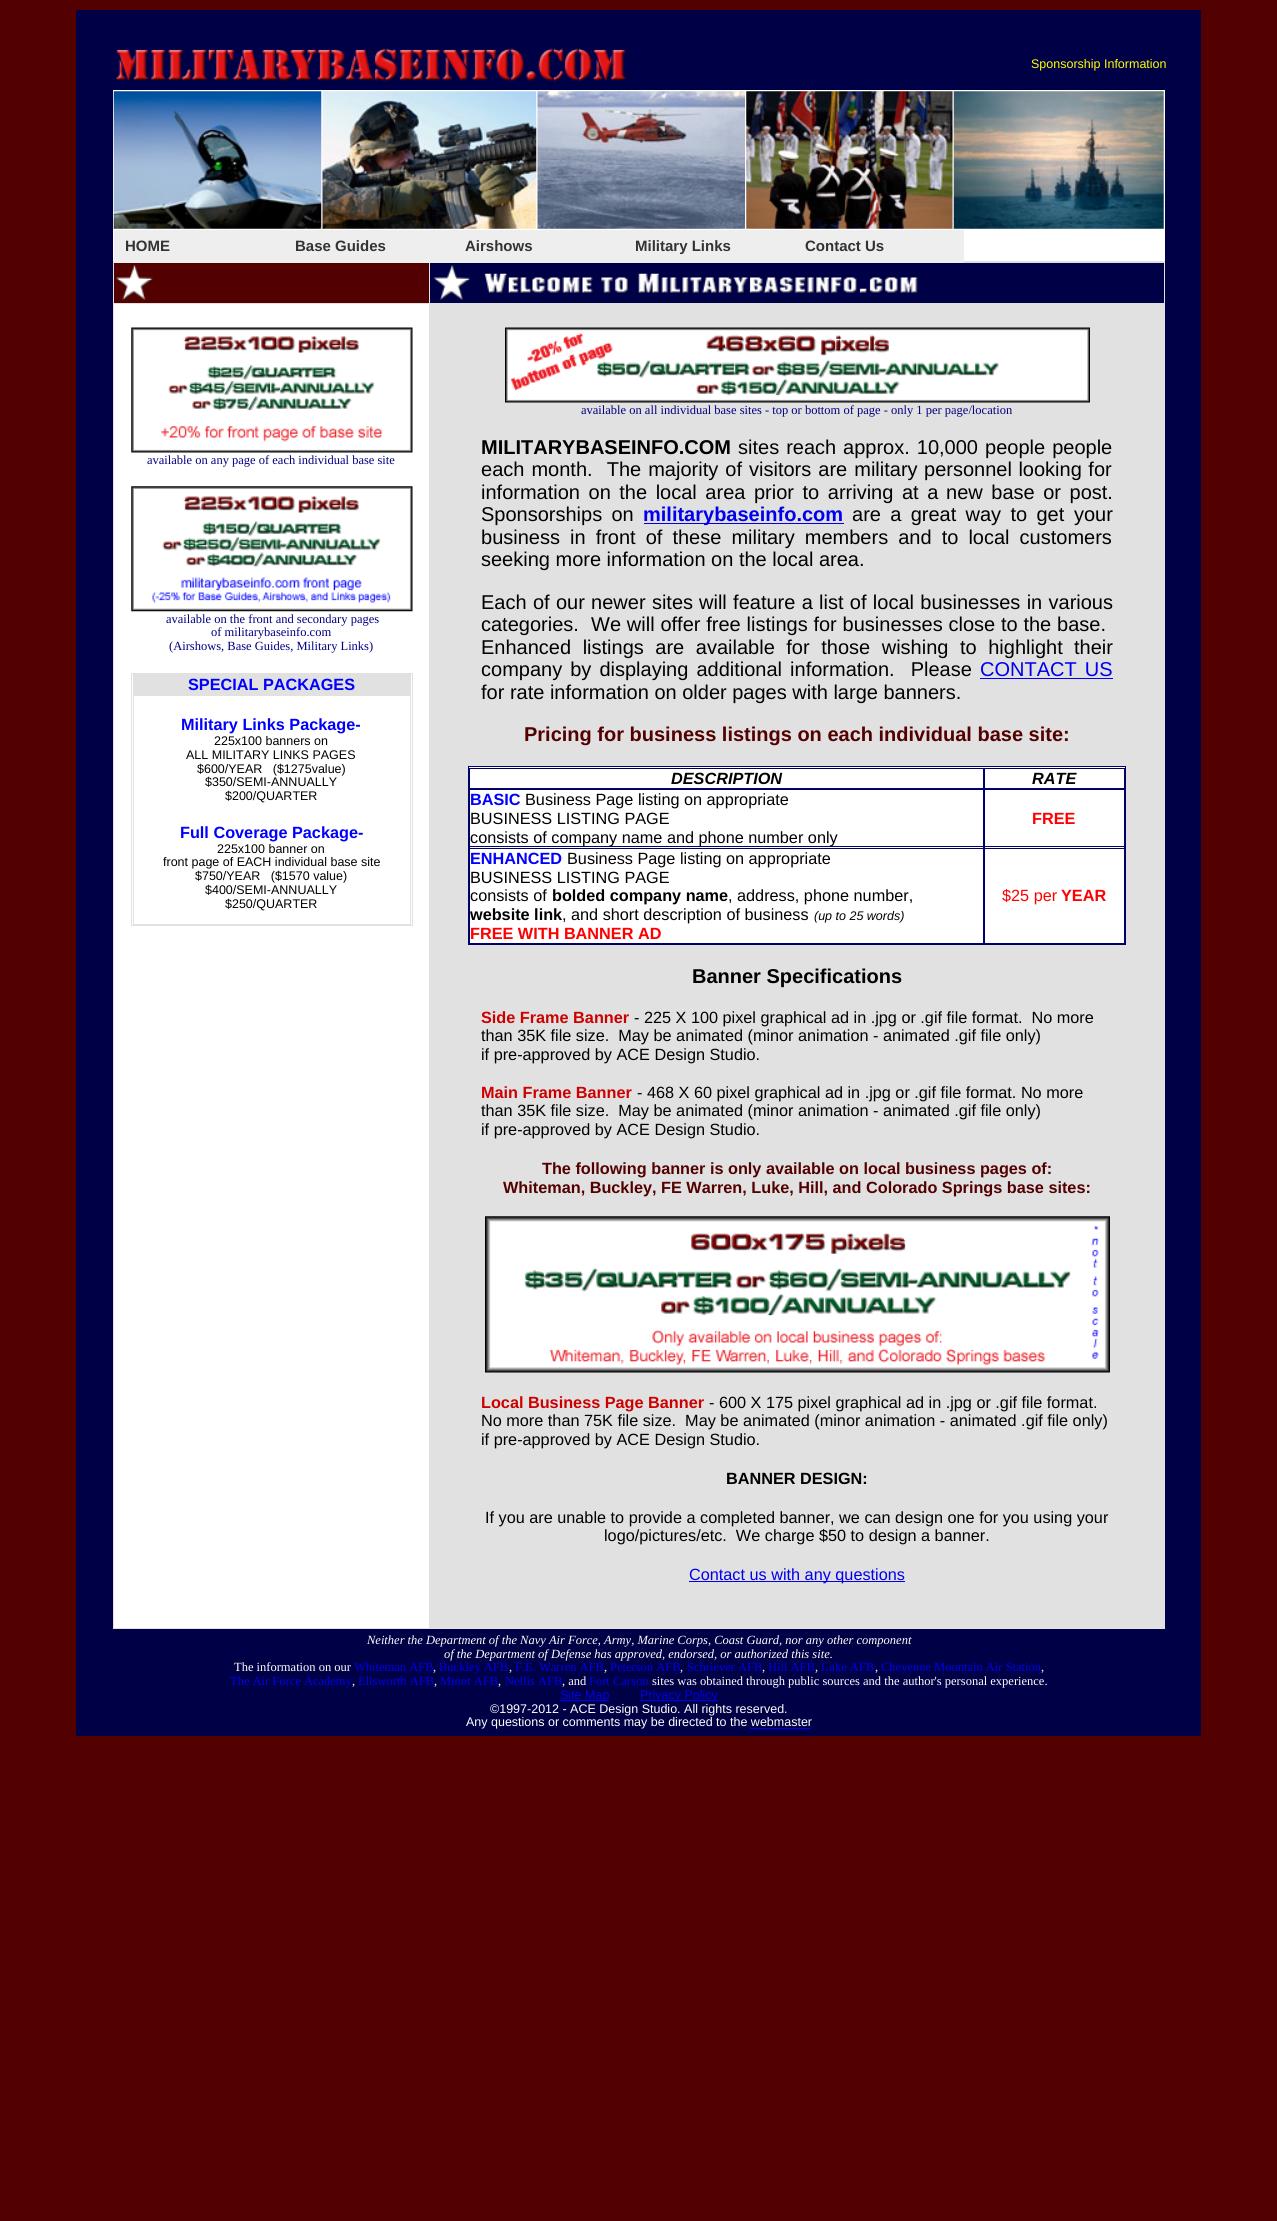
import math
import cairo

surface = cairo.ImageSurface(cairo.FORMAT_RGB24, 1277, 2221)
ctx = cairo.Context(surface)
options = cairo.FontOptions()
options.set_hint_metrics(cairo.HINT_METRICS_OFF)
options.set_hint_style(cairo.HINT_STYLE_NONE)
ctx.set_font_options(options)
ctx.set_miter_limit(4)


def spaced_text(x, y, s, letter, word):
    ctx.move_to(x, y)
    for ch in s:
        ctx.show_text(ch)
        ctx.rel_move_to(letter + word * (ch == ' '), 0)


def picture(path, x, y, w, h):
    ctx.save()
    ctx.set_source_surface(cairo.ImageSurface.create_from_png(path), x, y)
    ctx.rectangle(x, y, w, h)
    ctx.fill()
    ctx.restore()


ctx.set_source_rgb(0.325, 0, 0)
ctx.paint()
ctx.set_source_rgb(0, 0, 0.275)
ctx.rectangle(76, 10, 1125, 1726)
ctx.fill()
picture("img1.png", 116, 48, 510, 34)
ctx.select_font_face("Liberation Sans")
ctx.set_font_size(12.5)
ctx.set_source_rgb(1, 1, 0)
ctx.move_to(1031, 68)
ctx.show_text("Sponsorship Information")
ctx.set_source_rgb(1, 1, 1)
ctx.rectangle(113, 90, 1052, 171)
ctx.fill()
picture("img2.png", 113, 91, 209, 138)
picture("img3.png", 322, 91, 215, 138)
picture("img4.png", 537, 91, 208, 138)
picture("img5.png", 746, 91, 207, 138)
picture("img6.png", 953, 91, 211, 138)
ctx.set_source_rgb(0.882, 0.882, 0.882)
ctx.rectangle(113, 261, 1052, 1368)
ctx.fill()
ctx.set_source_rgb(0.933, 0.933, 0.933)
ctx.rectangle(114, 230, 850, 33)
ctx.fill()
ctx.select_font_face("Liberation Sans", cairo.FONT_SLANT_NORMAL, cairo.FONT_WEIGHT_BOLD)
ctx.set_font_size(15)
ctx.set_source_rgb(0.2, 0.2, 0.2)
ctx.move_to(125, 251)
ctx.show_text("HOME")
ctx.move_to(295, 251)
ctx.show_text("Base Guides")
ctx.move_to(465, 251)
ctx.show_text("Airshows")
ctx.move_to(635, 251)
ctx.show_text("Military Links")
ctx.move_to(805, 251)
ctx.show_text("Contact Us")
ctx.set_source_rgb(0.325, 0, 0)
ctx.rectangle(114, 263, 315, 40)
ctx.fill()
picture("img7.png", 116, 265, 37, 36)
ctx.set_source_rgb(0, 0, 0.275)
ctx.rectangle(430, 263, 734, 40)
ctx.fill()
picture("img8.png", 433, 265, 485, 35)
ctx.set_source_rgb(1, 1, 1)
ctx.rectangle(114, 304, 315, 1324)
ctx.fill()
picture("img9.png", 131, 327, 282, 126)
ctx.select_font_face("Liberation Serif")
ctx.set_font_size(12.5)
ctx.set_source_rgb(0, 0, 0.502)
ctx.move_to(147, 464)
ctx.show_text("available on any page of each individual base site")
picture("img10.png", 131, 486, 282, 126)
ctx.move_to(166, 623)
ctx.show_text("available on the front and secondary pages")
ctx.move_to(211, 636)
ctx.show_text("of militarybaseinfo.com")
ctx.move_to(169, 650)
ctx.show_text("(Airshows, Base Guides, Military Links)")
ctx.rectangle(131.5, 673.5, 281, 252)
ctx.set_source_rgb(0.882, 0.882, 0.882)
ctx.set_line_width(1)
ctx.stroke()
ctx.rectangle(133, 674, 278, 21)
ctx.fill()
ctx.select_font_face("Liberation Sans", cairo.FONT_SLANT_NORMAL, cairo.FONT_WEIGHT_BOLD)
ctx.set_font_size(16.25)
ctx.set_source_rgb(0, 0, 1)
ctx.move_to(188, 690)
ctx.show_text("SPECIAL PACKAGES")
ctx.rectangle(133.5, 695.5, 277, 229)
ctx.set_source_rgb(0.882, 0.882, 0.882)
ctx.stroke()
ctx.set_source_rgb(0, 0, 1)
ctx.move_to(181, 730)
ctx.show_text("Military Links Package-")
ctx.select_font_face("Liberation Sans")
ctx.set_font_size(12.5)
ctx.set_source_rgb(0, 0, 0)
ctx.move_to(214, 745)
ctx.show_text("225x100 banners on")
ctx.move_to(186, 759)
ctx.show_text("ALL MILITARY LINKS PAGES")
ctx.move_to(197, 773)
ctx.show_text("$600/YEAR   ($1275value)")
ctx.move_to(205, 786)
ctx.show_text("$350/SEMI-ANNUALLY")
ctx.move_to(225, 800)
ctx.show_text("$200/QUARTER")
ctx.select_font_face("Liberation Sans", cairo.FONT_SLANT_NORMAL, cairo.FONT_WEIGHT_BOLD)
ctx.set_font_size(16.25)
ctx.set_source_rgb(0, 0, 1)
ctx.move_to(180, 838)
ctx.show_text("Full Coverage Package-")
ctx.select_font_face("Liberation Sans")
ctx.set_font_size(12.5)
ctx.set_source_rgb(0, 0, 0)
ctx.move_to(217, 853)
ctx.show_text("225x100 banner on")
ctx.move_to(163, 866)
ctx.show_text("front page of EACH individual base site")
ctx.move_to(195, 880)
ctx.show_text("$750/YEAR   ($1570 value)")
ctx.move_to(205, 894)
ctx.show_text("$400/SEMI-ANNUALLY")
ctx.move_to(225, 908)
ctx.show_text("$250/QUARTER")
picture("img11.png", 505, 327, 585, 76)
ctx.select_font_face("Liberation Serif")
ctx.set_source_rgb(0, 0, 0.502)
ctx.move_to(581, 414)
ctx.show_text("available on all individual base sites - top or bottom of page - only 1 per page/location")
ctx.select_font_face("Liberation Sans", cairo.FONT_SLANT_NORMAL, cairo.FONT_WEIGHT_BOLD)
ctx.set_font_size(20)
ctx.set_source_rgb(0, 0, 0)
ctx.move_to(481, 454)
ctx.show_text("MILITARYBASEINFO.COM")
ctx.select_font_face("Liberation Sans")
spaced_text(738, 454, "sites reach", 0, 1.5)
spaced_text(843, 454, "approx. 10,000 people people", 0, 1.5)
spaced_text(481, 476, "each month.  The majority of visitors are military", 0, 1.5)
spaced_text(924, 476, "personnel looking for", 0, 1)
spaced_text(481, 499, "information on the local area prior to arriving at a", 0, 3)
spaced_text(946, 499, "new base or post.", 0, 3)
spaced_text(481, 521, "Sponsorships on", 0, 3.75)
ctx.set_source_rgb(0, 0, 0.933)
ctx.rectangle(644, 523, 200, 1)
ctx.fill()
ctx.select_font_face("Liberation Sans", cairo.FONT_SLANT_NORMAL, cairo.FONT_WEIGHT_BOLD)
ctx.move_to(643, 521)
ctx.show_text("militarybaseinfo.com")
ctx.select_font_face("Liberation Sans")
ctx.set_source_rgb(0, 0, 0)
spaced_text(852, 521, "are a great way to get", 0, 3.75)
ctx.move_to(1074, 521)
ctx.show_text("your")
spaced_text(481, 544, "business in front of these military members and to local customers", 0, 4.5)
ctx.move_to(481, 566)
ctx.show_text("seeking more information on the local area.")
spaced_text(481, 609, "Each of our newer sites", 0, 0.75)
spaced_text(699, 609, "will feature a list of local businesses in various", 0, 0.75)
ctx.move_to(481, 631)
ctx.show_text("categories.")
spaced_text(591, 631, "We will offer free listings for businesses close to the base.", 0, 0.25)
spaced_text(481, 654, "Enhanced listings are available for those wishing to highlight", 0, 6)
ctx.move_to(1074, 654)
ctx.show_text("their")
spaced_text(481, 676, "company by displaying additional information.  Please", 0, 2.5)
ctx.set_source_rgb(0, 0, 0.933)
spaced_text(980, 676, "CONTACT US", 0, 2.5)
ctx.rectangle(980, 678, 133, 1)
ctx.fill()
ctx.set_source_rgb(0, 0, 0)
ctx.move_to(481, 699)
ctx.show_text("for rate information on older pages with large banners.")
ctx.select_font_face("Liberation Sans", cairo.FONT_SLANT_NORMAL, cairo.FONT_WEIGHT_BOLD)
ctx.set_source_rgb(0.325, 0, 0)
ctx.move_to(524, 741)
ctx.show_text("Pricing for business listings on each individual base site:")
ctx.set_source_rgb(1, 1, 1)
ctx.rectangle(469, 767, 656, 176)
ctx.fill()
ctx.set_source_rgb(0, 0, 0.502)
ctx.rectangle(468, 766, 658, 1)
ctx.fill()
ctx.set_source_rgb(0, 0, 0.333)
ctx.rectangle(1125, 766, 1, 179)
ctx.fill()
ctx.rectangle(468, 944, 658, 1)
ctx.fill()
ctx.set_source_rgb(0, 0, 0.502)
ctx.rectangle(468, 766, 1, 179)
ctx.fill()
ctx.set_source_rgb(0, 0, 0.333)
ctx.rectangle(469, 768, 656, 1)
ctx.fill()
ctx.set_source_rgb(0, 0, 0.502)
ctx.rectangle(983, 768, 1, 21)
ctx.fill()
ctx.rectangle(469, 788, 515, 1)
ctx.fill()
ctx.set_source_rgb(0, 0, 0.333)
ctx.rectangle(469, 768, 1, 21)
ctx.fill()
ctx.select_font_face("Liberation Sans", cairo.FONT_SLANT_ITALIC, cairo.FONT_WEIGHT_BOLD)
ctx.set_font_size(16.25)
ctx.set_source_rgb(0, 0, 0)
ctx.move_to(671, 784)
ctx.show_text("DESCRIPTION")
ctx.set_source_rgb(0, 0, 0.502)
ctx.rectangle(1124, 768, 1, 21)
ctx.fill()
ctx.rectangle(984, 788, 141, 1)
ctx.fill()
ctx.set_source_rgb(0, 0, 0.333)
ctx.rectangle(984, 768, 1, 21)
ctx.fill()
ctx.set_source_rgb(0, 0, 0)
ctx.move_to(1032, 784)
ctx.show_text("RATE")
ctx.set_source_rgb(0, 0, 0.333)
ctx.rectangle(469, 789, 656, 1)
ctx.fill()
ctx.set_source_rgb(0, 0, 0.502)
ctx.rectangle(983, 789, 1, 59)
ctx.fill()
ctx.rectangle(469, 846, 515, 1)
ctx.fill()
ctx.set_source_rgb(0, 0, 0.333)
ctx.rectangle(469, 789, 1, 59)
ctx.fill()
ctx.select_font_face("Liberation Sans", cairo.FONT_SLANT_NORMAL, cairo.FONT_WEIGHT_BOLD)
ctx.set_source_rgb(0, 0, 1)
ctx.move_to(470, 805)
ctx.show_text("BASIC")
ctx.select_font_face("Liberation Sans")
ctx.set_source_rgb(0, 0, 0)
ctx.move_to(525, 805)
ctx.show_text("Business Page listing on appropriate")
ctx.move_to(470, 824)
ctx.show_text("BUSINESS LISTING PAGE")
ctx.move_to(470, 843)
ctx.show_text("consists of company name and phone number only")
ctx.set_source_rgb(0, 0, 0.502)
ctx.rectangle(1124, 789, 1, 59)
ctx.fill()
ctx.rectangle(984, 846, 141, 1)
ctx.fill()
ctx.set_source_rgb(0, 0, 0.333)
ctx.rectangle(984, 789, 1, 59)
ctx.fill()
ctx.select_font_face("Liberation Sans", cairo.FONT_SLANT_NORMAL, cairo.FONT_WEIGHT_BOLD)
ctx.set_source_rgb(1, 0, 0)
ctx.move_to(1032, 824)
ctx.show_text("FREE")
ctx.set_source_rgb(0, 0, 0.333)
ctx.rectangle(469, 848, 656, 1)
ctx.fill()
ctx.set_source_rgb(0, 0, 0.502)
ctx.rectangle(983, 848, 1, 96)
ctx.fill()
ctx.rectangle(469, 943, 515, 1)
ctx.fill()
ctx.set_source_rgb(0, 0, 0.333)
ctx.rectangle(469, 848, 1, 96)
ctx.fill()
ctx.set_source_rgb(0, 0, 1)
ctx.move_to(470, 864)
ctx.show_text("ENHANCED")
ctx.select_font_face("Liberation Sans")
ctx.set_source_rgb(0, 0, 0)
ctx.move_to(567, 864)
ctx.show_text("Business Page listing on appropriate")
ctx.move_to(470, 883)
ctx.show_text("BUSINESS LISTING PAGE")
ctx.move_to(470, 901)
ctx.show_text("consists of")
ctx.select_font_face("Liberation Sans", cairo.FONT_SLANT_NORMAL, cairo.FONT_WEIGHT_BOLD)
ctx.move_to(552, 901)
ctx.show_text("bolded company name")
ctx.select_font_face("Liberation Sans")
ctx.move_to(728, 901)
ctx.show_text(", address, phone number,")
ctx.select_font_face("Liberation Sans", cairo.FONT_SLANT_NORMAL, cairo.FONT_WEIGHT_BOLD)
ctx.move_to(470, 920)
ctx.show_text("website link")
ctx.select_font_face("Liberation Sans")
ctx.move_to(562, 920)
ctx.show_text(", and short description of business")
ctx.select_font_face("Liberation Sans", cairo.FONT_SLANT_ITALIC)
ctx.set_font_size(12.5)
ctx.move_to(814, 920)
ctx.show_text("(up to 25 words)")
ctx.select_font_face("Liberation Sans", cairo.FONT_SLANT_NORMAL, cairo.FONT_WEIGHT_BOLD)
ctx.set_font_size(16.25)
ctx.set_source_rgb(1, 0, 0)
ctx.move_to(470, 939)
ctx.show_text("FREE WITH BANNER AD")
ctx.set_source_rgb(0, 0, 0.502)
ctx.rectangle(1124, 848, 1, 96)
ctx.fill()
ctx.rectangle(984, 943, 141, 1)
ctx.fill()
ctx.set_source_rgb(0, 0, 0.333)
ctx.rectangle(984, 848, 1, 96)
ctx.fill()
ctx.select_font_face("Liberation Sans")
ctx.set_source_rgb(1, 0, 0)
ctx.move_to(1002, 901)
ctx.show_text("$25 per")
ctx.select_font_face("Liberation Sans", cairo.FONT_SLANT_NORMAL, cairo.FONT_WEIGHT_BOLD)
ctx.move_to(1061, 901)
ctx.show_text("YEAR")
ctx.set_font_size(20)
ctx.set_source_rgb(0, 0, 0)
ctx.move_to(692, 983)
ctx.show_text("Banner Specifications")
ctx.set_font_size(16.25)
ctx.set_source_rgb(0.8, 0, 0)
ctx.move_to(481, 1023)
ctx.show_text("Side Frame Banner")
ctx.select_font_face("Liberation Sans")
ctx.set_source_rgb(0, 0, 0)
ctx.move_to(634, 1023)
ctx.show_text("- 225 X 100 pixel graphical ad in .jpg or .gif file format.  No more")
ctx.move_to(481, 1041)
ctx.show_text("than 35K file size.  May be animated (minor animation - animated .gif file only)")
ctx.move_to(481, 1060)
ctx.show_text("if pre-approved by ACE Design Studio.")
ctx.select_font_face("Liberation Sans", cairo.FONT_SLANT_NORMAL, cairo.FONT_WEIGHT_BOLD)
ctx.set_source_rgb(0.8, 0, 0)
ctx.move_to(481, 1098)
ctx.show_text("Main Frame Banner")
ctx.select_font_face("Liberation Sans")
ctx.set_source_rgb(0, 0, 0)
ctx.move_to(637, 1098)
ctx.show_text("- 468 X 60 pixel graphical ad in .jpg or .gif file format. No more")
ctx.move_to(481, 1116)
ctx.show_text("than 35K file size.  May be animated (minor animation - animated .gif file only)")
ctx.move_to(481, 1135)
ctx.show_text("if pre-approved by ACE Design Studio.")
ctx.select_font_face("Liberation Sans", cairo.FONT_SLANT_NORMAL, cairo.FONT_WEIGHT_BOLD)
ctx.set_source_rgb(0.325, 0, 0)
ctx.move_to(542, 1174)
ctx.show_text("The following banner is only available on local business pages of:")
ctx.move_to(503, 1193)
ctx.show_text("Whiteman, Buckley, FE Warren, Luke, Hill, and Colorado Springs base sites:")
picture("img12.png", 485, 1216, 625, 157)
ctx.set_source_rgb(0.8, 0, 0)
ctx.move_to(481, 1408)
ctx.show_text("Local Business Page Banner")
ctx.select_font_face("Liberation Sans")
ctx.set_source_rgb(0, 0, 0)
ctx.move_to(709, 1408)
ctx.show_text("- 600 X 175 pixel graphical ad in .jpg or .gif file format.")
ctx.move_to(481, 1426)
ctx.show_text("No more than 75K file size.  May be animated (minor animation - animated .gif file only)")
ctx.move_to(481, 1445)
ctx.show_text("if pre-approved by ACE Design Studio.")
ctx.select_font_face("Liberation Sans", cairo.FONT_SLANT_NORMAL, cairo.FONT_WEIGHT_BOLD)
ctx.move_to(726, 1484)
ctx.show_text("BANNER DESIGN:")
ctx.select_font_face("Liberation Sans")
ctx.move_to(485, 1523)
ctx.show_text("If you are unable to provide a completed banner, we can design one for you using your")
ctx.move_to(604, 1541)
ctx.show_text("logo/pictures/etc.  We charge $50 to design a banner.")
ctx.set_source_rgb(0, 0, 0.933)
ctx.rectangle(689, 1581, 216, 1)
ctx.fill()
ctx.move_to(689, 1580)
ctx.show_text("Contact us with any questions")
ctx.select_font_face("Liberation Serif", cairo.FONT_SLANT_ITALIC)
ctx.set_font_size(12.5)
ctx.set_source_rgb(1, 1, 1)
ctx.move_to(367, 1644)
ctx.show_text("Neither the Department of the Navy Air Force, Army, Marine Corps, Coast Guard, nor any other component")
ctx.move_to(444, 1658)
ctx.show_text("of the Department of Defense has approved, endorsed, or authorized this site.")
ctx.select_font_face("Liberation Serif")
ctx.move_to(234, 1671)
ctx.show_text("The information on our")
ctx.set_source_rgb(0, 0, 0.933)
ctx.move_to(354, 1671)
ctx.show_text("Whiteman AFB")
ctx.set_source_rgb(1, 1, 1)
ctx.move_to(433, 1671)
ctx.show_text(",")
ctx.set_source_rgb(0, 0, 0.933)
ctx.move_to(439, 1671)
ctx.show_text("Buckley AFB")
ctx.set_source_rgb(1, 1, 1)
ctx.move_to(509, 1671)
ctx.show_text(",")
ctx.set_source_rgb(0, 0, 0.933)
ctx.move_to(515, 1671)
ctx.show_text("F.E. Warren AFB")
ctx.set_source_rgb(1, 1, 1)
ctx.move_to(604, 1671)
ctx.show_text(",")
ctx.set_source_rgb(0, 0, 0.933)
ctx.move_to(610, 1671)
ctx.show_text("Peterson AFB")
ctx.set_source_rgb(1, 1, 1)
ctx.move_to(680, 1671)
ctx.show_text(",")
ctx.set_source_rgb(0, 0, 0.933)
ctx.move_to(687, 1671)
ctx.show_text("Schriever AFB")
ctx.set_source_rgb(1, 1, 1)
ctx.move_to(762, 1671)
ctx.show_text(",")
ctx.set_source_rgb(0, 0, 0.933)
ctx.move_to(768, 1671)
ctx.show_text("Hill AFB")
ctx.set_source_rgb(1, 1, 1)
ctx.move_to(815, 1671)
ctx.show_text(",")
ctx.set_source_rgb(0, 0, 0.933)
ctx.move_to(821, 1671)
ctx.show_text("Luke AFB")
ctx.set_source_rgb(1, 1, 1)
ctx.move_to(875, 1671)
ctx.show_text(",")
ctx.set_source_rgb(0, 0, 0.933)
ctx.move_to(881, 1671)
ctx.show_text("Cheyenne Mountain Air Station")
ctx.set_source_rgb(1, 1, 1)
ctx.move_to(1041, 1671)
ctx.show_text(",")
ctx.set_source_rgb(0, 0, 0.933)
ctx.move_to(230, 1685)
ctx.show_text("The Air Force Academy")
ctx.set_source_rgb(1, 1, 1)
ctx.move_to(352, 1685)
ctx.show_text(",")
ctx.set_source_rgb(0, 0, 0.933)
ctx.move_to(358, 1685)
ctx.show_text("Ellsworth AFB")
ctx.set_source_rgb(1, 1, 1)
ctx.move_to(434, 1685)
ctx.show_text(",")
ctx.set_source_rgb(0, 0, 0.933)
ctx.move_to(440, 1685)
ctx.show_text("Minot AFB")
ctx.set_source_rgb(1, 1, 1)
ctx.move_to(498, 1685)
ctx.show_text(",")
ctx.set_source_rgb(0, 0, 0.933)
ctx.move_to(505, 1685)
ctx.show_text("Nellis AFB")
ctx.set_source_rgb(1, 1, 1)
ctx.move_to(562, 1685)
ctx.show_text(", and")
ctx.set_source_rgb(0, 0, 0.933)
ctx.move_to(589, 1685)
ctx.show_text("Fort Carson")
ctx.set_source_rgb(1, 1, 1)
ctx.move_to(652, 1685)
ctx.show_text("sites was obtained through public sources and the author's personal experience.")
ctx.set_source_rgb(0, 0, 0.933)
ctx.rectangle(560, 1700, 49, 1)
ctx.fill()
ctx.select_font_face("Liberation Sans")
ctx.move_to(560, 1699)
ctx.show_text("Site Map")
ctx.rectangle(640, 1700, 78, 1)
ctx.fill()
ctx.move_to(640, 1699)
ctx.show_text("Privacy Policy")
ctx.set_source_rgb(1, 1, 1)
ctx.move_to(490, 1713)
ctx.show_text("©1997-2012 - ACE Design Studio. All rights reserved.")
ctx.move_to(466, 1726)
ctx.show_text("Any questions or comments may be directed to the webmaster")
ctx.set_source_rgb(0, 0, 0.933)
ctx.rectangle(750, 1728, 61, 1)
ctx.fill()
surface.write_to_png("page.png")
